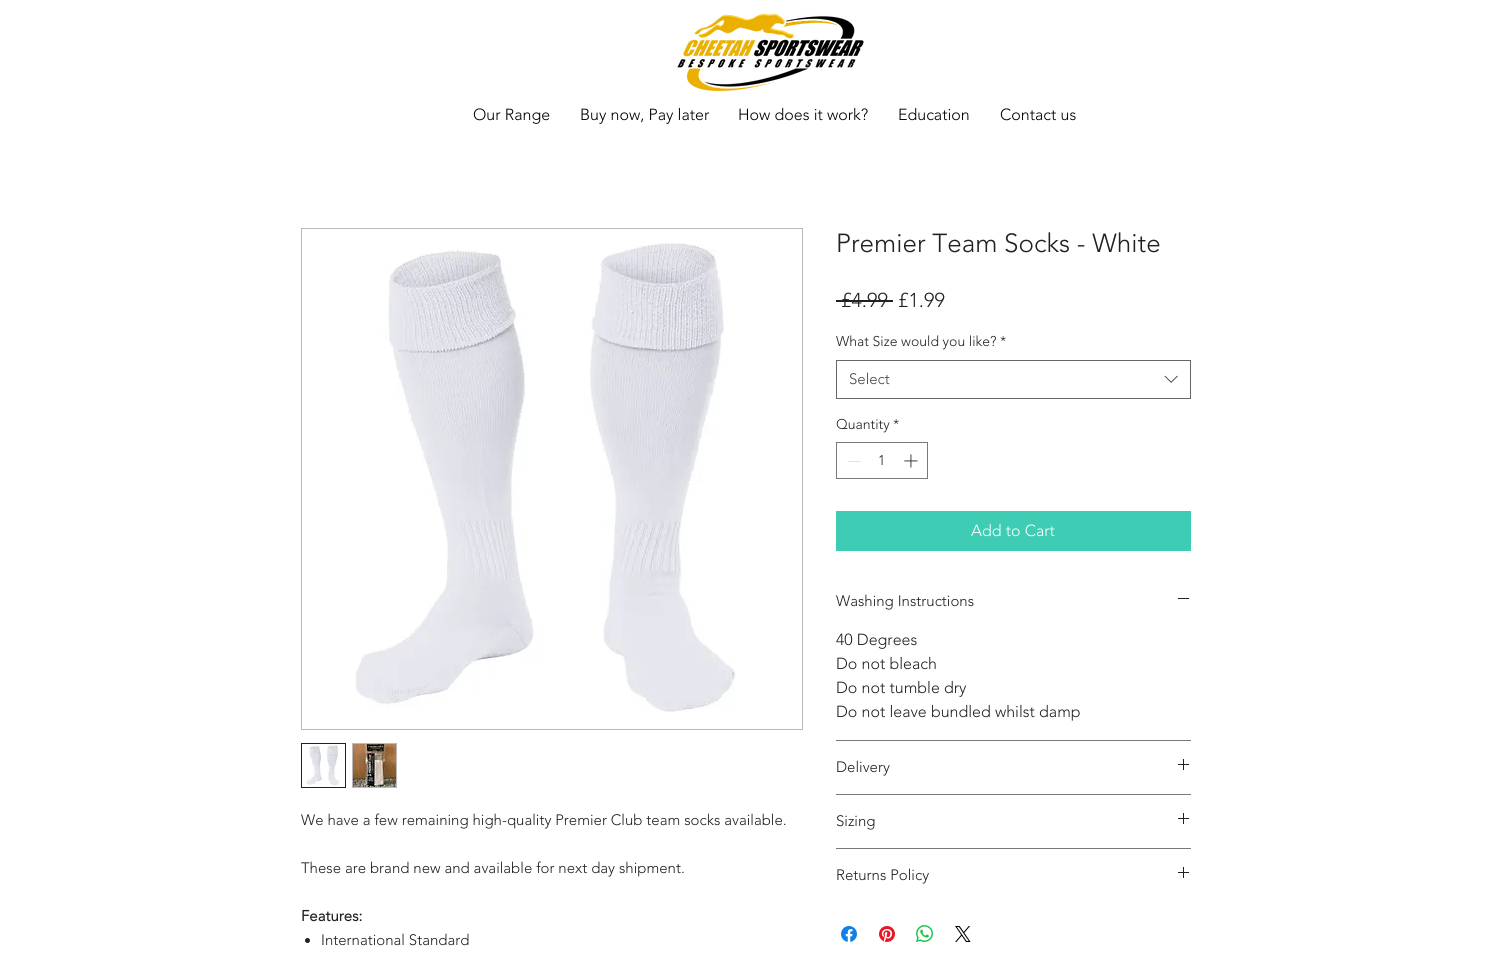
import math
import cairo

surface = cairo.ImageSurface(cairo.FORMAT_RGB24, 1491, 954)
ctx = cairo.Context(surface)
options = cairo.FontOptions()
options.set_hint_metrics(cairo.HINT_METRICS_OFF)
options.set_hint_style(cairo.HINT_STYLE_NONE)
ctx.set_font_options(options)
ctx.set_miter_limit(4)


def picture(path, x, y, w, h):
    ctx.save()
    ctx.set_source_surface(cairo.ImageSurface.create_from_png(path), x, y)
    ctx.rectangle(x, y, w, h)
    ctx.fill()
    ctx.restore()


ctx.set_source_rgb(1, 1, 1)
ctx.paint()
picture("img1.png", 677, 13, 187, 79)
ctx.select_font_face("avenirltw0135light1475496 Light")
ctx.set_font_size(16)
ctx.set_source_rgb(0, 0, 0)
ctx.move_to(473, 120)
ctx.show_text("Our Range")
ctx.move_to(580, 120)
ctx.show_text("Buy now, Pay later")
ctx.move_to(738, 120)
ctx.show_text("How does it work?")
ctx.move_to(898, 120)
ctx.show_text("Education")
ctx.move_to(1000, 120)
ctx.show_text("Contact us")
ctx.rectangle(301.5, 228.5, 501, 501)
ctx.set_source_rgb(0.729, 0.722, 0.722)
ctx.set_line_width(1)
ctx.stroke()
picture("img2.png", 355, 243, 381, 470)
ctx.rectangle(301.5, 743.5, 44, 44)
ctx.set_source_rgb(0.129, 0.129, 0.129)
ctx.stroke()
picture("img3.png", 302, 744, 43, 43)
ctx.set_source_rgb(0.729, 0.722, 0.722)
ctx.rectangle(352, 743, 45, 45)
ctx.fill()
picture("img4.png", 353, 744, 43, 43)
ctx.set_font_size(15)
ctx.set_source_rgb(0.129, 0.129, 0.129)
ctx.move_to(301, 825)
ctx.show_text("We have a few remaining high-quality Premier Club team socks available.")
ctx.move_to(301, 873)
ctx.show_text("These are brand new and available for next day shipment.")
ctx.select_font_face("avenirltw0135light1475496", cairo.FONT_SLANT_NORMAL, cairo.FONT_WEIGHT_BOLD)
ctx.move_to(301, 921)
ctx.show_text("Features:")
ctx.new_path()
ctx.arc(307.5, 940.5, 2.5, 0, 2 * math.pi)
ctx.fill()
ctx.select_font_face("avenirltw0135light1475496 Light")
ctx.move_to(321, 945)
ctx.show_text("International Standard")
ctx.set_font_size(26)
ctx.move_to(836, 252)
ctx.show_text("Premier Team Socks - White")
ctx.set_font_size(20)
ctx.move_to(841, 307)
ctx.show_text("£4.99")
ctx.rectangle(836, 300, 57, 2)
ctx.fill()
ctx.move_to(898, 307)
ctx.show_text("£1.99")
ctx.set_font_size(14)
ctx.move_to(836, 346)
ctx.show_text("What Size would you like?")
ctx.move_to(1000, 346)
ctx.show_text("*")
ctx.rectangle(836.5, 360.5, 354, 38)
ctx.set_source_rgb(0.4, 0.4, 0.4)
ctx.stroke()
ctx.set_font_size(15)
ctx.set_source_rgb(0.267, 0.267, 0.267)
ctx.move_to(849, 384)
ctx.show_text("Select")
picture("img5.png", 1164, 375, 14, 8)
ctx.set_font_size(14)
ctx.set_source_rgb(0.129, 0.129, 0.129)
ctx.move_to(836, 429)
ctx.show_text("Quantity")
ctx.move_to(893, 429)
ctx.show_text("*")
ctx.rectangle(836.5, 442.5, 91, 36)
ctx.set_source_rgb(0.478, 0.478, 0.478)
ctx.stroke()
ctx.set_source_rgb(0.89, 0.89, 0.89)
ctx.rectangle(848, 461, 13, 1)
ctx.fill()
ctx.set_source_rgb(0.129, 0.129, 0.129)
ctx.move_to(878, 465)
ctx.show_text("1")
picture("img6.png", 904, 454, 14, 14)
ctx.set_source_rgb(0.243, 0.8, 0.71)
ctx.rectangle(836, 511, 355, 40)
ctx.fill()
ctx.set_font_size(16)
ctx.set_source_rgb(1, 1, 1)
ctx.move_to(971, 536)
ctx.show_text("Add to Cart")
ctx.set_source_rgb(0.478, 0.475, 0.475)
ctx.rectangle(836, 740, 355, 1)
ctx.fill()
ctx.set_font_size(15)
ctx.set_source_rgb(0.129, 0.129, 0.129)
ctx.move_to(836, 606)
ctx.show_text("Washing Instructions")
ctx.rectangle(1178, 598, 11, 1)
ctx.fill()
ctx.set_font_size(16)
ctx.move_to(836, 645)
ctx.show_text("40 Degrees")
ctx.move_to(836, 669)
ctx.show_text("Do not bleach")
ctx.move_to(836, 693)
ctx.show_text("Do not tumble dry")
ctx.move_to(836, 717)
ctx.show_text("Do not leave bundled whilst damp")
ctx.set_source_rgb(0.478, 0.475, 0.475)
ctx.rectangle(836, 794, 355, 1)
ctx.fill()
ctx.set_font_size(15)
ctx.set_source_rgb(0.129, 0.129, 0.129)
ctx.move_to(836, 772)
ctx.show_text("Delivery")
picture("img7.png", 1178, 759, 11, 11)
ctx.set_source_rgb(0.478, 0.475, 0.475)
ctx.rectangle(836, 848, 355, 1)
ctx.fill()
ctx.set_source_rgb(0.129, 0.129, 0.129)
ctx.move_to(836, 826)
ctx.show_text("Sizing")
picture("img7.png", 1178, 813, 11, 11)
ctx.move_to(836, 880)
ctx.show_text("Returns Policy")
picture("img7.png", 1178, 867, 11, 11)
picture("img8.png", 841, 926, 16, 16)
picture("img9.png", 879, 926, 16, 16)
picture("img10.png", 916, 925, 17, 17)
picture("img11.png", 955, 926, 16, 16)
surface.write_to_png("page.png")
